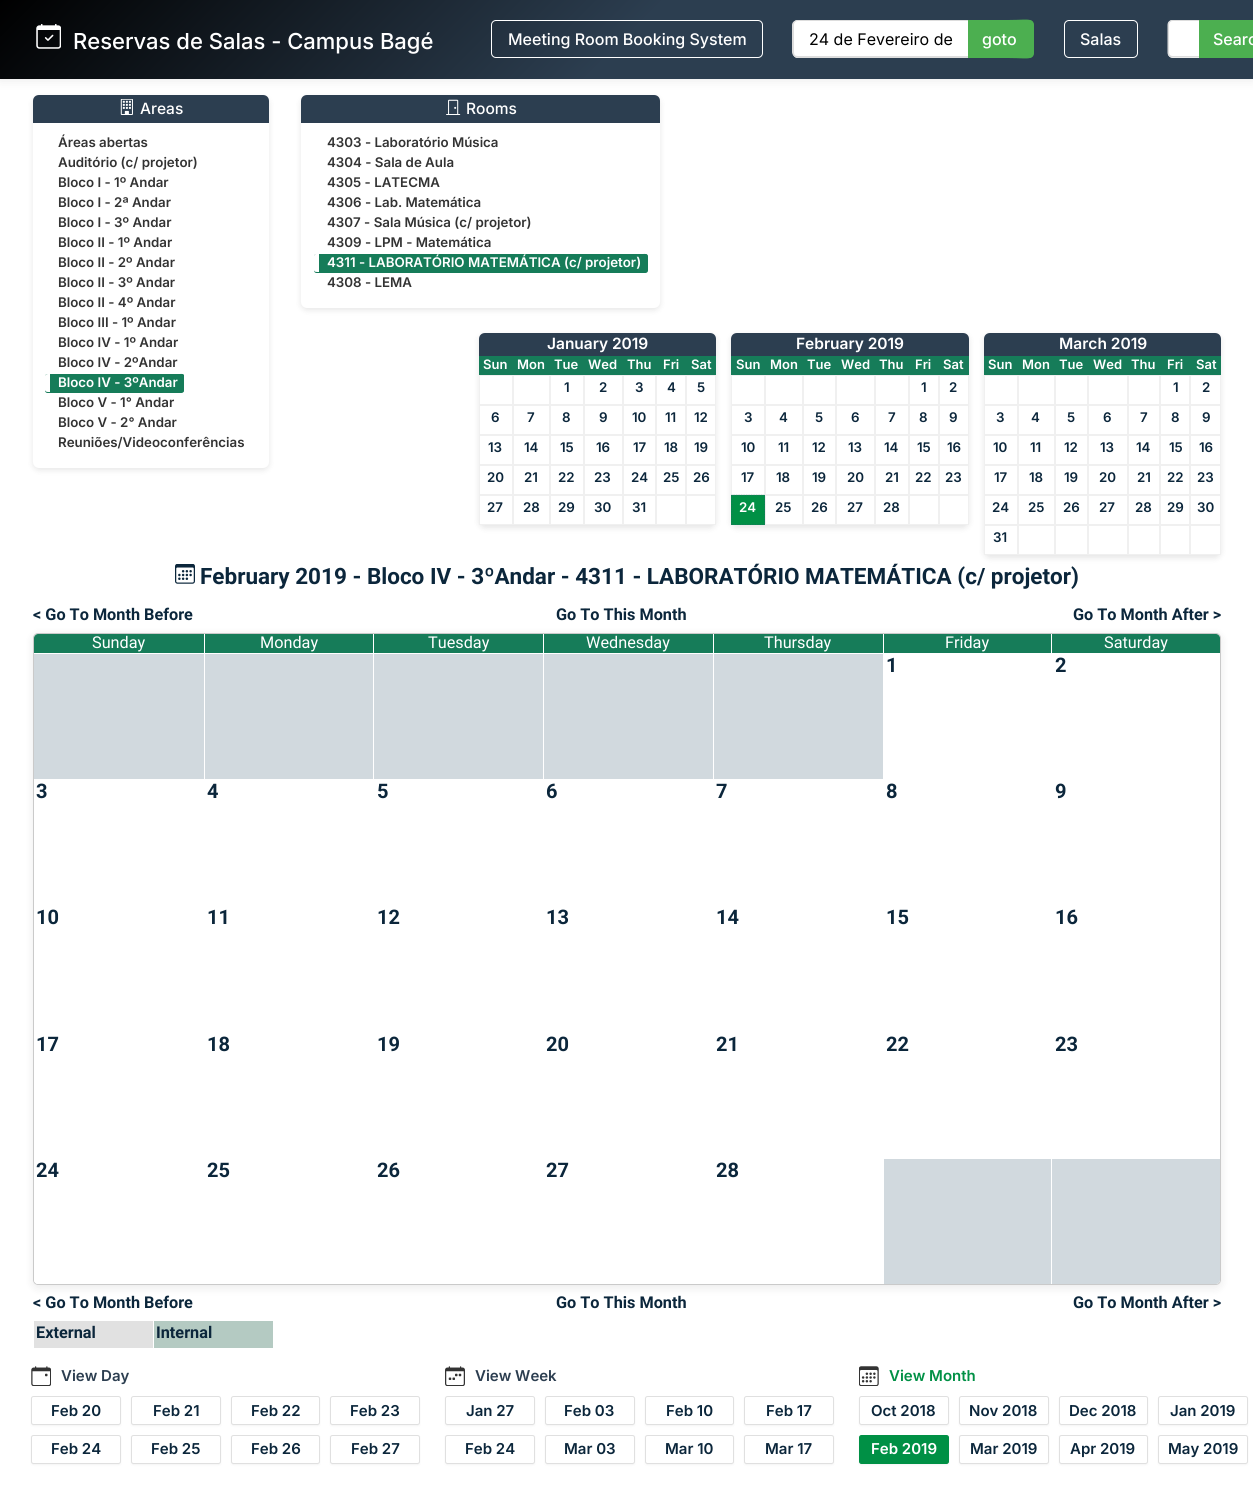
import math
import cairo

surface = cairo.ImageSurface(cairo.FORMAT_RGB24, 1253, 1498)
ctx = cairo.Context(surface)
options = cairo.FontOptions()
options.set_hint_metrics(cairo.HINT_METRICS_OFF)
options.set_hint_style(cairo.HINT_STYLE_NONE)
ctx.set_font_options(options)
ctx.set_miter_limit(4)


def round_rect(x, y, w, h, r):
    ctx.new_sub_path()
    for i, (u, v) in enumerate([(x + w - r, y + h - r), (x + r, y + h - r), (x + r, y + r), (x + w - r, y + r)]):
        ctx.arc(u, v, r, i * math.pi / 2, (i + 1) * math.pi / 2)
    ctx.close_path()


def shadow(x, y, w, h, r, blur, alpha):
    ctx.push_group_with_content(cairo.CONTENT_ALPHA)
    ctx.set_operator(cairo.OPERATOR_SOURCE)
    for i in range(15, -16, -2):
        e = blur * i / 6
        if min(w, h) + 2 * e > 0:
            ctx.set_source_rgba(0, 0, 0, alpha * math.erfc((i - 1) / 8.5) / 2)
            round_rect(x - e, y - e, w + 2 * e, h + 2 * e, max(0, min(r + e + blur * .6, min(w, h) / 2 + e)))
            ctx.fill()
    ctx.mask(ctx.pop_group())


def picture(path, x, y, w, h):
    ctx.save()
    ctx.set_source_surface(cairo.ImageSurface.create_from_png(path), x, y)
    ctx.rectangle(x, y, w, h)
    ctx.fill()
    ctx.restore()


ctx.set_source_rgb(1, 1, 1)
ctx.paint()
ctx.set_source_rgb(0, 0, 0)
shadow(33, 98, 236, 372, 6, 3, 0.1)
ctx.set_source_rgb(1, 1, 1)
round_rect(33, 95, 236, 373, 6)
ctx.fill()
ctx.set_source_rgb(0.173, 0.243, 0.314)
ctx.new_path()
ctx.move_to(39, 95)
ctx.line_to(263, 95)
ctx.curve_to(266.5, 95, 269, 97.5, 269, 101)
ctx.line_to(269, 123)
ctx.line_to(33, 123)
ctx.line_to(33, 101)
ctx.curve_to(33, 97.5, 35.5, 95, 39, 95)
ctx.close_path()
ctx.fill()
ctx.set_source_rgb(0, 0, 0)
shadow(301, 98, 359, 212, 6, 3, 0.1)
ctx.set_source_rgb(1, 1, 1)
round_rect(301, 95, 359, 213, 6)
ctx.fill()
ctx.set_source_rgb(0.173, 0.243, 0.314)
ctx.new_path()
ctx.move_to(307, 95)
ctx.line_to(654, 95)
ctx.curve_to(657.5, 95, 660, 97.5, 660, 101)
ctx.line_to(660, 123)
ctx.line_to(301, 123)
ctx.line_to(301, 101)
ctx.curve_to(301, 97.5, 303.5, 95, 307, 95)
ctx.close_path()
ctx.fill()
ctx.set_source_rgb(0, 0, 0)
shadow(0, 0, 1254, 79, 0, 6, 0.1)
gradient = cairo.LinearGradient(294, -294, 960, 373)
gradient.add_color_stop_rgba(0, 0, 0, 0, 1)
gradient.add_color_stop_rgba(0.5, 0.173, 0.243, 0.314, 1)
ctx.set_source(gradient)
ctx.rectangle(0, 0, 1253, 79)
ctx.fill()
picture("img1.png", 36, 24, 25, 25)
ctx.select_font_face("Inter Medium")
ctx.set_font_size(22)
ctx.set_source_rgb(1, 1, 1)
ctx.move_to(73, 49)
ctx.show_text("Reservas de Salas - Campus Bagé")
round_rect(491.5, 20.5, 271, 37, 4.5)
ctx.set_line_width(1)
ctx.stroke()
ctx.set_font_size(16)
ctx.move_to(508, 45)
ctx.show_text("Meeting Room Booking System")
ctx.new_path()
ctx.move_to(798, 20)
ctx.line_to(968, 20)
ctx.line_to(968, 58)
ctx.line_to(798, 58)
ctx.curve_to(795, 58, 793, 56, 793, 53)
ctx.line_to(793, 25)
ctx.curve_to(793, 22, 795, 20, 798, 20)
ctx.close_path()
ctx.fill()
ctx.set_source_rgb(0.867, 0.867, 0.867)
ctx.set_fill_rule(cairo.FILL_RULE_EVEN_ODD)
ctx.new_path()
ctx.move_to(798, 20)
ctx.line_to(968, 20)
ctx.line_to(968, 58)
ctx.line_to(798, 58)
ctx.curve_to(795, 58, 792, 55, 792, 52)
ctx.line_to(792, 25)
ctx.curve_to(792, 22, 795, 20, 798, 20)
ctx.close_path()
ctx.move_to(798, 21)
ctx.line_to(968, 21)
ctx.line_to(968, 56)
ctx.line_to(798, 56)
ctx.curve_to(795, 56, 794, 55, 794, 52)
ctx.line_to(794, 25)
ctx.curve_to(794, 23, 795, 21, 798, 21)
ctx.close_path()
ctx.fill()
ctx.select_font_face("Inter")
ctx.set_source_rgb(0, 0, 0)
ctx.move_to(809, 45)
ctx.show_text("24 de Fevereiro de")
ctx.set_source_rgb(0.298, 0.686, 0.314)
ctx.new_path()
ctx.move_to(968, 20)
ctx.line_to(1029, 20)
ctx.curve_to(1032, 20, 1034, 22, 1034, 25)
ctx.line_to(1034, 53)
ctx.curve_to(1034, 56, 1032, 58, 1029, 58)
ctx.line_to(968, 58)
ctx.close_path()
ctx.fill()
ctx.new_path()
ctx.move_to(968, 20)
ctx.line_to(1008, 20)
ctx.curve_to(1035, 20, 1034, 15, 1034, 39)
ctx.curve_to(1034, 63, 1035, 58, 1008, 58)
ctx.line_to(968, 58)
ctx.close_path()
ctx.move_to(968, 21)
ctx.line_to(1008, 21)
ctx.curve_to(1035, 21, 1032, 16, 1032, 39)
ctx.curve_to(1032, 62, 1035, 56, 1008, 56)
ctx.line_to(968, 56)
ctx.close_path()
ctx.fill()
ctx.select_font_face("Inter Medium")
ctx.set_source_rgb(1, 1, 1)
ctx.move_to(982, 45)
ctx.show_text("goto")
round_rect(1064.5, 20.5, 73, 37, 4.5)
ctx.stroke()
ctx.move_to(1080, 45)
ctx.show_text("Salas")
ctx.new_path()
ctx.move_to(1173, 20)
ctx.line_to(1199, 20)
ctx.line_to(1199, 58)
ctx.line_to(1173, 58)
ctx.curve_to(1170, 58, 1168, 56, 1168, 53)
ctx.line_to(1168, 25)
ctx.curve_to(1168, 22, 1170, 20, 1173, 20)
ctx.close_path()
ctx.fill()
ctx.set_source_rgb(0.867, 0.867, 0.867)
ctx.new_path()
ctx.move_to(1172.5, 20)
ctx.line_to(1199, 20)
ctx.line_to(1199, 57.5)
ctx.line_to(1172.5, 57.5)
ctx.curve_to(1169.5, 57.5, 1167.5, 55.5, 1167.5, 52.5)
ctx.line_to(1167.5, 25)
ctx.curve_to(1167.5, 22, 1169.5, 20, 1172.5, 20)
ctx.close_path()
ctx.move_to(1172.5, 21)
ctx.line_to(1199, 21)
ctx.line_to(1199, 56)
ctx.line_to(1172.5, 56)
ctx.curve_to(1170.5, 56, 1169, 54.5, 1169, 52.5)
ctx.line_to(1169, 25)
ctx.curve_to(1169, 23, 1170.5, 21, 1172.5, 21)
ctx.close_path()
ctx.fill()
ctx.set_source_rgb(0.298, 0.686, 0.314)
ctx.rectangle(1199, 20, 54, 38)
ctx.fill()
ctx.set_source_rgb(1, 1, 1)
ctx.move_to(1213, 45)
ctx.show_text("Searc")
picture("img2.png", 120, 99, 13, 16)
ctx.set_font_size(15.5)
ctx.move_to(140, 114)
ctx.show_text("Areas")
ctx.select_font_face("Inter SemiBold")
ctx.set_font_size(13.3)
ctx.set_source_rgb(0.2, 0.2, 0.2)
ctx.move_to(58, 147)
ctx.show_text("Áreas abertas")
ctx.move_to(58, 167)
ctx.show_text("Auditório (c/ projetor)")
ctx.move_to(58, 187)
ctx.show_text("Bloco I - 1º Andar")
ctx.move_to(58, 207)
ctx.show_text("Bloco I - 2ª Andar")
ctx.move_to(58, 227)
ctx.show_text("Bloco I - 3º Andar")
ctx.move_to(58, 247)
ctx.show_text("Bloco II - 1º Andar")
ctx.move_to(58, 267)
ctx.show_text("Bloco II - 2º Andar")
ctx.move_to(58, 287)
ctx.show_text("Bloco II - 3º Andar")
ctx.move_to(58, 307)
ctx.show_text("Bloco II - 4º Andar")
ctx.move_to(58, 327)
ctx.show_text("Bloco III - 1º Andar")
ctx.move_to(58, 347)
ctx.show_text("Bloco IV - 1º Andar")
ctx.move_to(58, 367)
ctx.show_text("Bloco IV - 2ºAndar")
ctx.set_source_rgb(0.086, 0.486, 0.349)
round_rect(45, 374, 139, 19, 2.5)
ctx.fill()
ctx.set_source_rgb(1, 1, 1)
ctx.move_to(58, 387)
ctx.show_text("Bloco IV - 3ºAndar")
ctx.set_source_rgb(0.086, 0.486, 0.349)
ctx.set_fill_rule(cairo.FILL_RULE_WINDING)
ctx.new_path()
ctx.move_to(184, 375)
ctx.line_to(184, 391)
ctx.curve_to(183, 392.5, 180.5, 392, 179, 392)
ctx.line_to(179, 374)
ctx.curve_to(180.5, 374, 183, 373.5, 184, 375)
ctx.close_path()
ctx.fill()
ctx.set_source_rgb(1, 1, 1)
ctx.new_path()
ctx.move_to(48, 374)
ctx.curve_to(46, 374, 45, 375, 45, 376)
ctx.line_to(45, 390)
ctx.curve_to(45, 391, 46, 392, 48, 392)
ctx.line_to(50, 392)
ctx.line_to(50, 374)
ctx.close_path()
ctx.fill()
ctx.set_source_rgb(0.2, 0.2, 0.2)
ctx.move_to(58, 407)
ctx.show_text("Bloco V - 1° Andar")
ctx.move_to(58, 427)
ctx.show_text("Bloco V - 2° Andar")
ctx.move_to(58, 447)
ctx.show_text("Reuniões/Videoconferências")
picture("img3.png", 446, 99, 15, 16)
ctx.select_font_face("Inter Medium")
ctx.set_font_size(15.5)
ctx.set_source_rgb(1, 1, 1)
ctx.move_to(466, 114)
ctx.show_text("Rooms")
ctx.select_font_face("Inter SemiBold")
ctx.set_font_size(13.3)
ctx.set_source_rgb(0.2, 0.2, 0.2)
ctx.move_to(327, 147)
ctx.show_text("4303 - Laboratório Música")
ctx.move_to(327, 167)
ctx.show_text("4304 - Sala de Aula")
ctx.move_to(327, 187)
ctx.show_text("4305 - LATECMA")
ctx.move_to(327, 207)
ctx.show_text("4306 - Lab. Matemática")
ctx.move_to(327, 227)
ctx.show_text("4307 - Sala Música (c/ projetor)")
ctx.move_to(327, 247)
ctx.show_text("4309 - LPM - Matemática")
ctx.set_source_rgb(0.086, 0.486, 0.349)
round_rect(314, 254, 334, 19, 2.5)
ctx.fill()
ctx.set_source_rgb(1, 1, 1)
ctx.move_to(327, 267)
ctx.show_text("4311 - LABORATÓRIO MATEMÁTICA (c/ projetor)")
ctx.set_source_rgb(0.086, 0.486, 0.349)
ctx.new_path()
ctx.move_to(647.5, 255)
ctx.line_to(647.5, 271)
ctx.curve_to(646, 272.5, 644, 272, 642, 272)
ctx.line_to(642, 254)
ctx.curve_to(644, 254, 646, 253.5, 647.5, 255)
ctx.close_path()
ctx.fill()
ctx.set_source_rgb(1, 1, 1)
ctx.new_path()
ctx.move_to(316, 254)
ctx.curve_to(313, 254, 314, 259, 314, 260.5)
ctx.line_to(314, 265.5)
ctx.curve_to(314, 271.5, 313, 272, 319, 272)
ctx.line_to(319, 254)
ctx.close_path()
ctx.fill()
ctx.set_source_rgb(0.2, 0.2, 0.2)
ctx.move_to(327, 287)
ctx.show_text("4308 - LEMA")
ctx.save()
ctx.set_fill_rule(cairo.FILL_RULE_EVEN_ODD)
ctx.new_path()
ctx.move_to(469, 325)
ctx.line_to(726, 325)
ctx.line_to(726, 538)
ctx.line_to(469, 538)
ctx.close_path()
ctx.move_to(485, 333)
ctx.line_to(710, 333)
ctx.curve_to(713.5, 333, 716, 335.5, 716, 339)
ctx.line_to(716, 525)
ctx.line_to(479, 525)
ctx.line_to(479, 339)
ctx.curve_to(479, 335.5, 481.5, 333, 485, 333)
ctx.close_path()
ctx.clip()
ctx.set_source_rgb(0, 0, 0)
shadow(479, 335, 237, 193, 6, 3, 0.1)
ctx.restore()
ctx.set_source_rgb(0.173, 0.243, 0.314)
ctx.new_path()
ctx.move_to(485, 333)
ctx.line_to(710, 333)
ctx.curve_to(713.5, 333, 716, 335.5, 716, 339)
ctx.line_to(716, 356)
ctx.line_to(479, 356)
ctx.line_to(479, 339)
ctx.curve_to(479, 335.5, 481.5, 333, 485, 333)
ctx.close_path()
ctx.fill()
ctx.set_font_size(15.5)
ctx.set_source_rgb(1, 1, 1)
ctx.move_to(547, 349)
ctx.show_text("January 2019")
ctx.set_source_rgb(0.086, 0.486, 0.349)
ctx.rectangle(479, 356, 237, 19)
ctx.fill()
ctx.set_font_size(13)
ctx.set_source_rgb(1, 1, 1)
ctx.move_to(483, 369)
ctx.show_text("Sun")
ctx.move_to(517, 369)
ctx.show_text("Mon")
ctx.move_to(554, 369)
ctx.show_text("Tue")
ctx.move_to(588, 369)
ctx.show_text("Wed")
ctx.move_to(627, 369)
ctx.show_text("Thu")
ctx.move_to(663, 369)
ctx.show_text("Fri")
ctx.move_to(691, 369)
ctx.show_text("Sat")
ctx.rectangle(479.5, 375.5, 33, 29)
ctx.set_source_rgb(0.941, 0.941, 0.941)
ctx.stroke()
ctx.rectangle(513.5, 375.5, 36, 29)
ctx.stroke()
ctx.rectangle(550.5, 375.5, 33, 29)
ctx.stroke()
ctx.set_font_size(13.3)
ctx.set_source_rgb(0.043, 0.149, 0.231)
ctx.move_to(564, 392)
ctx.show_text("1")
ctx.rectangle(584.5, 375.5, 38, 29)
ctx.set_source_rgb(0.941, 0.941, 0.941)
ctx.stroke()
ctx.set_source_rgb(0.043, 0.149, 0.231)
ctx.move_to(599, 392)
ctx.show_text("2")
ctx.rectangle(623.5, 375.5, 32, 29)
ctx.set_source_rgb(0.941, 0.941, 0.941)
ctx.stroke()
ctx.set_source_rgb(0.043, 0.149, 0.231)
ctx.move_to(635, 392)
ctx.show_text("3")
ctx.rectangle(656.5, 375.5, 29, 29)
ctx.set_source_rgb(0.941, 0.941, 0.941)
ctx.stroke()
ctx.set_source_rgb(0.043, 0.149, 0.231)
ctx.move_to(667, 392)
ctx.show_text("4")
ctx.rectangle(686.5, 375.5, 29, 29)
ctx.set_source_rgb(0.941, 0.941, 0.941)
ctx.stroke()
ctx.set_source_rgb(0.043, 0.149, 0.231)
ctx.move_to(697, 392)
ctx.show_text("5")
ctx.rectangle(479.5, 405.5, 33, 29)
ctx.set_source_rgb(0.941, 0.941, 0.941)
ctx.stroke()
ctx.set_source_rgb(0.043, 0.149, 0.231)
ctx.move_to(491, 422)
ctx.show_text("6")
ctx.rectangle(513.5, 405.5, 36, 29)
ctx.set_source_rgb(0.941, 0.941, 0.941)
ctx.stroke()
ctx.set_source_rgb(0.043, 0.149, 0.231)
ctx.move_to(527, 422)
ctx.show_text("7")
ctx.rectangle(550.5, 405.5, 33, 29)
ctx.set_source_rgb(0.941, 0.941, 0.941)
ctx.stroke()
ctx.set_source_rgb(0.043, 0.149, 0.231)
ctx.move_to(562, 422)
ctx.show_text("8")
ctx.rectangle(584.5, 405.5, 38, 29)
ctx.set_source_rgb(0.941, 0.941, 0.941)
ctx.stroke()
ctx.set_source_rgb(0.043, 0.149, 0.231)
ctx.move_to(599, 422)
ctx.show_text("9")
ctx.rectangle(623.5, 405.5, 32, 29)
ctx.set_source_rgb(0.941, 0.941, 0.941)
ctx.stroke()
ctx.set_source_rgb(0.043, 0.149, 0.231)
ctx.move_to(632, 422)
ctx.show_text("10")
ctx.rectangle(656.5, 405.5, 29, 29)
ctx.set_source_rgb(0.941, 0.941, 0.941)
ctx.stroke()
ctx.set_source_rgb(0.043, 0.149, 0.231)
ctx.move_to(665, 422)
ctx.show_text("11")
ctx.rectangle(686.5, 405.5, 29, 29)
ctx.set_source_rgb(0.941, 0.941, 0.941)
ctx.stroke()
ctx.set_source_rgb(0.043, 0.149, 0.231)
ctx.move_to(694, 422)
ctx.show_text("12")
ctx.rectangle(479.5, 435.5, 33, 29)
ctx.set_source_rgb(0.941, 0.941, 0.941)
ctx.stroke()
ctx.set_source_rgb(0.043, 0.149, 0.231)
ctx.move_to(488, 452)
ctx.show_text("13")
ctx.rectangle(513.5, 435.5, 36, 29)
ctx.set_source_rgb(0.941, 0.941, 0.941)
ctx.stroke()
ctx.set_source_rgb(0.043, 0.149, 0.231)
ctx.move_to(524, 452)
ctx.show_text("14")
ctx.rectangle(550.5, 435.5, 33, 29)
ctx.set_source_rgb(0.941, 0.941, 0.941)
ctx.stroke()
ctx.set_source_rgb(0.043, 0.149, 0.231)
ctx.move_to(560, 452)
ctx.show_text("15")
ctx.rectangle(584.5, 435.5, 38, 29)
ctx.set_source_rgb(0.941, 0.941, 0.941)
ctx.stroke()
ctx.set_source_rgb(0.043, 0.149, 0.231)
ctx.move_to(596, 452)
ctx.show_text("16")
ctx.rectangle(623.5, 435.5, 32, 29)
ctx.set_source_rgb(0.941, 0.941, 0.941)
ctx.stroke()
ctx.set_source_rgb(0.043, 0.149, 0.231)
ctx.move_to(633, 452)
ctx.show_text("17")
ctx.rectangle(656.5, 435.5, 29, 29)
ctx.set_source_rgb(0.941, 0.941, 0.941)
ctx.stroke()
ctx.set_source_rgb(0.043, 0.149, 0.231)
ctx.move_to(664, 452)
ctx.show_text("18")
ctx.rectangle(686.5, 435.5, 29, 29)
ctx.set_source_rgb(0.941, 0.941, 0.941)
ctx.stroke()
ctx.set_source_rgb(0.043, 0.149, 0.231)
ctx.move_to(694, 452)
ctx.show_text("19")
ctx.rectangle(479.5, 465.5, 33, 29)
ctx.set_source_rgb(0.941, 0.941, 0.941)
ctx.stroke()
ctx.set_source_rgb(0.043, 0.149, 0.231)
ctx.move_to(487, 482)
ctx.show_text("20")
ctx.rectangle(513.5, 465.5, 36, 29)
ctx.set_source_rgb(0.941, 0.941, 0.941)
ctx.stroke()
ctx.set_source_rgb(0.043, 0.149, 0.231)
ctx.move_to(524, 482)
ctx.show_text("21")
ctx.rectangle(550.5, 465.5, 33, 29)
ctx.set_source_rgb(0.941, 0.941, 0.941)
ctx.stroke()
ctx.set_source_rgb(0.043, 0.149, 0.231)
ctx.move_to(558, 482)
ctx.show_text("22")
ctx.rectangle(584.5, 465.5, 38, 29)
ctx.set_source_rgb(0.941, 0.941, 0.941)
ctx.stroke()
ctx.set_source_rgb(0.043, 0.149, 0.231)
ctx.move_to(594, 482)
ctx.show_text("23")
ctx.rectangle(623.5, 465.5, 32, 29)
ctx.set_source_rgb(0.941, 0.941, 0.941)
ctx.stroke()
ctx.set_source_rgb(0.043, 0.149, 0.231)
ctx.move_to(631, 482)
ctx.show_text("24")
ctx.rectangle(656.5, 465.5, 29, 29)
ctx.set_source_rgb(0.941, 0.941, 0.941)
ctx.stroke()
ctx.set_source_rgb(0.043, 0.149, 0.231)
ctx.move_to(663, 482)
ctx.show_text("25")
ctx.rectangle(686.5, 465.5, 29, 29)
ctx.set_source_rgb(0.941, 0.941, 0.941)
ctx.stroke()
ctx.set_source_rgb(0.043, 0.149, 0.231)
ctx.move_to(693, 482)
ctx.show_text("26")
ctx.rectangle(479.5, 495.5, 33, 29)
ctx.set_source_rgb(0.941, 0.941, 0.941)
ctx.stroke()
ctx.set_source_rgb(0.043, 0.149, 0.231)
ctx.move_to(487, 512)
ctx.show_text("27")
ctx.rectangle(513.5, 495.5, 36, 29)
ctx.set_source_rgb(0.941, 0.941, 0.941)
ctx.stroke()
ctx.set_source_rgb(0.043, 0.149, 0.231)
ctx.move_to(523, 512)
ctx.show_text("28")
ctx.rectangle(550.5, 495.5, 33, 29)
ctx.set_source_rgb(0.941, 0.941, 0.941)
ctx.stroke()
ctx.set_source_rgb(0.043, 0.149, 0.231)
ctx.move_to(558, 512)
ctx.show_text("29")
ctx.rectangle(584.5, 495.5, 38, 29)
ctx.set_source_rgb(0.941, 0.941, 0.941)
ctx.stroke()
ctx.set_source_rgb(0.043, 0.149, 0.231)
ctx.move_to(594, 512)
ctx.show_text("30")
ctx.rectangle(623.5, 495.5, 32, 29)
ctx.set_source_rgb(0.941, 0.941, 0.941)
ctx.stroke()
ctx.set_source_rgb(0.043, 0.149, 0.231)
ctx.move_to(632, 512)
ctx.show_text("31")
ctx.rectangle(656.5, 495.5, 29, 29)
ctx.set_source_rgb(0.941, 0.941, 0.941)
ctx.stroke()
ctx.rectangle(686.5, 495.5, 29, 29)
ctx.stroke()
ctx.set_source_rgb(0, 0, 0)
shadow(731, 335, 238, 193, 6, 3, 0.1)
ctx.set_source_rgb(1, 1, 1)
ctx.new_path()
ctx.move_to(737, 333)
ctx.line_to(963, 333)
ctx.curve_to(966.5, 333, 969, 335.5, 969, 339)
ctx.line_to(969, 525)
ctx.line_to(731, 525)
ctx.line_to(731, 339)
ctx.curve_to(731, 335.5, 733.5, 333, 737, 333)
ctx.close_path()
ctx.fill()
ctx.set_source_rgb(0.173, 0.243, 0.314)
ctx.new_path()
ctx.move_to(737, 333)
ctx.line_to(963, 333)
ctx.curve_to(966.5, 333, 969, 335.5, 969, 339)
ctx.line_to(969, 356)
ctx.line_to(731, 356)
ctx.line_to(731, 339)
ctx.curve_to(731, 335.5, 733.5, 333, 737, 333)
ctx.close_path()
ctx.fill()
ctx.set_font_size(15.5)
ctx.set_source_rgb(1, 1, 1)
ctx.move_to(796, 349)
ctx.show_text("February 2019")
ctx.set_source_rgb(0.086, 0.486, 0.349)
ctx.rectangle(731, 356, 238, 19)
ctx.fill()
ctx.set_font_size(13)
ctx.set_source_rgb(1, 1, 1)
ctx.move_to(736, 369)
ctx.show_text("Sun")
ctx.move_to(770, 369)
ctx.show_text("Mon")
ctx.move_to(807, 369)
ctx.show_text("Tue")
ctx.move_to(841, 369)
ctx.show_text("Wed")
ctx.move_to(879, 369)
ctx.show_text("Thu")
ctx.move_to(915, 369)
ctx.show_text("Fri")
ctx.move_to(943, 369)
ctx.show_text("Sat")
ctx.rectangle(731.5, 375.5, 33, 29)
ctx.set_source_rgb(0.941, 0.941, 0.941)
ctx.stroke()
ctx.rectangle(765.5, 375.5, 37, 29)
ctx.stroke()
ctx.rectangle(803.5, 375.5, 32, 29)
ctx.stroke()
ctx.rectangle(836.5, 375.5, 38, 29)
ctx.stroke()
ctx.rectangle(875.5, 375.5, 33, 29)
ctx.stroke()
ctx.rectangle(909.5, 375.5, 29, 29)
ctx.stroke()
ctx.set_font_size(13.3)
ctx.set_source_rgb(0.043, 0.149, 0.231)
ctx.move_to(921, 392)
ctx.show_text("1")
ctx.rectangle(939.5, 375.5, 29, 29)
ctx.set_source_rgb(0.941, 0.941, 0.941)
ctx.stroke()
ctx.set_source_rgb(0.043, 0.149, 0.231)
ctx.move_to(949, 392)
ctx.show_text("2")
ctx.rectangle(731.5, 405.5, 33, 29)
ctx.set_source_rgb(0.941, 0.941, 0.941)
ctx.stroke()
ctx.set_source_rgb(0.043, 0.149, 0.231)
ctx.move_to(744, 422)
ctx.show_text("3")
ctx.rectangle(765.5, 405.5, 37, 29)
ctx.set_source_rgb(0.941, 0.941, 0.941)
ctx.stroke()
ctx.set_source_rgb(0.043, 0.149, 0.231)
ctx.move_to(779, 422)
ctx.show_text("4")
ctx.rectangle(803.5, 405.5, 32, 29)
ctx.set_source_rgb(0.941, 0.941, 0.941)
ctx.stroke()
ctx.set_source_rgb(0.043, 0.149, 0.231)
ctx.move_to(815, 422)
ctx.show_text("5")
ctx.rectangle(836.5, 405.5, 38, 29)
ctx.set_source_rgb(0.941, 0.941, 0.941)
ctx.stroke()
ctx.set_source_rgb(0.043, 0.149, 0.231)
ctx.move_to(851, 422)
ctx.show_text("6")
ctx.rectangle(875.5, 405.5, 33, 29)
ctx.set_source_rgb(0.941, 0.941, 0.941)
ctx.stroke()
ctx.set_source_rgb(0.043, 0.149, 0.231)
ctx.move_to(888, 422)
ctx.show_text("7")
ctx.rectangle(909.5, 405.5, 29, 29)
ctx.set_source_rgb(0.941, 0.941, 0.941)
ctx.stroke()
ctx.set_source_rgb(0.043, 0.149, 0.231)
ctx.move_to(919, 422)
ctx.show_text("8")
ctx.rectangle(939.5, 405.5, 29, 29)
ctx.set_source_rgb(0.941, 0.941, 0.941)
ctx.stroke()
ctx.set_source_rgb(0.043, 0.149, 0.231)
ctx.move_to(949, 422)
ctx.show_text("9")
ctx.rectangle(731.5, 435.5, 33, 29)
ctx.set_source_rgb(0.941, 0.941, 0.941)
ctx.stroke()
ctx.set_source_rgb(0.043, 0.149, 0.231)
ctx.move_to(741, 452)
ctx.show_text("10")
ctx.rectangle(765.5, 435.5, 37, 29)
ctx.set_source_rgb(0.941, 0.941, 0.941)
ctx.stroke()
ctx.set_source_rgb(0.043, 0.149, 0.231)
ctx.move_to(778, 452)
ctx.show_text("11")
ctx.rectangle(803.5, 435.5, 32, 29)
ctx.set_source_rgb(0.941, 0.941, 0.941)
ctx.stroke()
ctx.set_source_rgb(0.043, 0.149, 0.231)
ctx.move_to(812, 452)
ctx.show_text("12")
ctx.rectangle(836.5, 435.5, 38, 29)
ctx.set_source_rgb(0.941, 0.941, 0.941)
ctx.stroke()
ctx.set_source_rgb(0.043, 0.149, 0.231)
ctx.move_to(848, 452)
ctx.show_text("13")
ctx.rectangle(875.5, 435.5, 33, 29)
ctx.set_source_rgb(0.941, 0.941, 0.941)
ctx.stroke()
ctx.set_source_rgb(0.043, 0.149, 0.231)
ctx.move_to(884, 452)
ctx.show_text("14")
ctx.rectangle(909.5, 435.5, 29, 29)
ctx.set_source_rgb(0.941, 0.941, 0.941)
ctx.stroke()
ctx.set_source_rgb(0.043, 0.149, 0.231)
ctx.move_to(917, 452)
ctx.show_text("15")
ctx.rectangle(939.5, 435.5, 29, 29)
ctx.set_source_rgb(0.941, 0.941, 0.941)
ctx.stroke()
ctx.set_source_rgb(0.043, 0.149, 0.231)
ctx.move_to(947, 452)
ctx.show_text("16")
ctx.rectangle(731.5, 465.5, 33, 29)
ctx.set_source_rgb(0.941, 0.941, 0.941)
ctx.stroke()
ctx.set_source_rgb(0.043, 0.149, 0.231)
ctx.move_to(741, 482)
ctx.show_text("17")
ctx.rectangle(765.5, 465.5, 37, 29)
ctx.set_source_rgb(0.941, 0.941, 0.941)
ctx.stroke()
ctx.set_source_rgb(0.043, 0.149, 0.231)
ctx.move_to(776, 482)
ctx.show_text("18")
ctx.rectangle(803.5, 465.5, 32, 29)
ctx.set_source_rgb(0.941, 0.941, 0.941)
ctx.stroke()
ctx.set_source_rgb(0.043, 0.149, 0.231)
ctx.move_to(812, 482)
ctx.show_text("19")
ctx.rectangle(836.5, 465.5, 38, 29)
ctx.set_source_rgb(0.941, 0.941, 0.941)
ctx.stroke()
ctx.set_source_rgb(0.043, 0.149, 0.231)
ctx.move_to(847, 482)
ctx.show_text("20")
ctx.rectangle(875.5, 465.5, 33, 29)
ctx.set_source_rgb(0.941, 0.941, 0.941)
ctx.stroke()
ctx.set_source_rgb(0.043, 0.149, 0.231)
ctx.move_to(885, 482)
ctx.show_text("21")
ctx.rectangle(909.5, 465.5, 29, 29)
ctx.set_source_rgb(0.941, 0.941, 0.941)
ctx.stroke()
ctx.set_source_rgb(0.043, 0.149, 0.231)
ctx.move_to(915, 482)
ctx.show_text("22")
ctx.rectangle(939.5, 465.5, 29, 29)
ctx.set_source_rgb(0.941, 0.941, 0.941)
ctx.stroke()
ctx.set_source_rgb(0.043, 0.149, 0.231)
ctx.move_to(945, 482)
ctx.show_text("23")
ctx.set_source_rgb(0, 0.565, 0.271)
ctx.rectangle(731, 495, 34, 30)
ctx.fill()
ctx.new_path()
ctx.move_to(731, 495.5)
ctx.line_to(765, 495.5)
ctx.move_to(764.5, 495)
ctx.line_to(764.5, 525)
ctx.set_source_rgb(0.086, 0.486, 0.349)
ctx.set_line_width(1.2)
ctx.set_dash([1.25, 1.25])
ctx.stroke()
ctx.save()
ctx.new_path()
ctx.move_to(737, 333)
ctx.line_to(963, 333)
ctx.curve_to(966.5, 333, 969, 335.5, 969, 339)
ctx.line_to(969, 525)
ctx.line_to(731, 525)
ctx.line_to(731, 339)
ctx.curve_to(731, 335.5, 733.5, 333, 737, 333)
ctx.close_path()
ctx.clip()
ctx.new_path()
ctx.move_to(731, 524.5)
ctx.line_to(765, 524.5)
ctx.stroke()
ctx.restore()
ctx.new_path()
ctx.move_to(732, 495)
ctx.line_to(732, 525)
ctx.stroke()
ctx.set_source_rgb(1, 1, 1)
ctx.move_to(739, 512)
ctx.show_text("24")
ctx.rectangle(765.5, 495.5, 37, 29)
ctx.set_source_rgb(0.941, 0.941, 0.941)
ctx.set_line_width(1)
ctx.set_dash([])
ctx.stroke()
ctx.set_source_rgb(0.043, 0.149, 0.231)
ctx.move_to(775, 512)
ctx.show_text("25")
ctx.rectangle(803.5, 495.5, 32, 29)
ctx.set_source_rgb(0.941, 0.941, 0.941)
ctx.stroke()
ctx.set_source_rgb(0.043, 0.149, 0.231)
ctx.move_to(811, 512)
ctx.show_text("26")
ctx.rectangle(836.5, 495.5, 38, 29)
ctx.set_source_rgb(0.941, 0.941, 0.941)
ctx.stroke()
ctx.set_source_rgb(0.043, 0.149, 0.231)
ctx.move_to(847, 512)
ctx.show_text("27")
ctx.rectangle(875.5, 495.5, 33, 29)
ctx.set_source_rgb(0.941, 0.941, 0.941)
ctx.stroke()
ctx.set_source_rgb(0.043, 0.149, 0.231)
ctx.move_to(883, 512)
ctx.show_text("28")
ctx.rectangle(909.5, 495.5, 29, 29)
ctx.set_source_rgb(0.941, 0.941, 0.941)
ctx.stroke()
ctx.rectangle(939.5, 495.5, 29, 29)
ctx.stroke()
ctx.save()
ctx.set_fill_rule(cairo.FILL_RULE_EVEN_ODD)
ctx.new_path()
ctx.move_to(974, 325)
ctx.line_to(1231, 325)
ctx.line_to(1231, 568)
ctx.line_to(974, 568)
ctx.close_path()
ctx.move_to(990, 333)
ctx.line_to(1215, 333)
ctx.curve_to(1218.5, 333, 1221, 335.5, 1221, 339)
ctx.line_to(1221, 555)
ctx.line_to(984, 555)
ctx.line_to(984, 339)
ctx.curve_to(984, 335.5, 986.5, 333, 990, 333)
ctx.close_path()
ctx.clip()
ctx.set_source_rgb(0, 0, 0)
shadow(984, 335, 237, 223, 6, 3, 0.1)
ctx.restore()
ctx.set_source_rgb(0.173, 0.243, 0.314)
ctx.new_path()
ctx.move_to(990, 333)
ctx.line_to(1215, 333)
ctx.curve_to(1218.5, 333, 1221, 335.5, 1221, 339)
ctx.line_to(1221, 356)
ctx.line_to(984, 356)
ctx.line_to(984, 339)
ctx.curve_to(984, 335.5, 986.5, 333, 990, 333)
ctx.close_path()
ctx.fill()
ctx.set_font_size(15.5)
ctx.set_source_rgb(1, 1, 1)
ctx.move_to(1059, 349)
ctx.show_text("March 2019")
ctx.set_source_rgb(0.086, 0.486, 0.349)
ctx.rectangle(984, 356, 237, 19)
ctx.fill()
ctx.set_font_size(13)
ctx.set_source_rgb(1, 1, 1)
ctx.move_to(988, 369)
ctx.show_text("Sun")
ctx.move_to(1022, 369)
ctx.show_text("Mon")
ctx.move_to(1059, 369)
ctx.show_text("Tue")
ctx.move_to(1093, 369)
ctx.show_text("Wed")
ctx.move_to(1131, 369)
ctx.show_text("Thu")
ctx.move_to(1167, 369)
ctx.show_text("Fri")
ctx.move_to(1196, 369)
ctx.show_text("Sat")
ctx.rectangle(984.5, 375.5, 33, 29)
ctx.set_source_rgb(0.941, 0.941, 0.941)
ctx.stroke()
ctx.rectangle(1018.5, 375.5, 36, 29)
ctx.stroke()
ctx.rectangle(1055.5, 375.5, 32, 29)
ctx.stroke()
ctx.rectangle(1088.5, 375.5, 39, 29)
ctx.stroke()
ctx.rectangle(1128.5, 375.5, 31, 29)
ctx.stroke()
ctx.rectangle(1160.5, 375.5, 29, 29)
ctx.stroke()
ctx.set_font_size(13.3)
ctx.set_source_rgb(0.043, 0.149, 0.231)
ctx.move_to(1173, 392)
ctx.show_text("1")
ctx.rectangle(1190.5, 375.5, 30, 29)
ctx.set_source_rgb(0.941, 0.941, 0.941)
ctx.stroke()
ctx.set_source_rgb(0.043, 0.149, 0.231)
ctx.move_to(1202, 392)
ctx.show_text("2")
ctx.rectangle(984.5, 405.5, 33, 29)
ctx.set_source_rgb(0.941, 0.941, 0.941)
ctx.stroke()
ctx.set_source_rgb(0.043, 0.149, 0.231)
ctx.move_to(996, 422)
ctx.show_text("3")
ctx.rectangle(1018.5, 405.5, 36, 29)
ctx.set_source_rgb(0.941, 0.941, 0.941)
ctx.stroke()
ctx.set_source_rgb(0.043, 0.149, 0.231)
ctx.move_to(1031, 422)
ctx.show_text("4")
ctx.rectangle(1055.5, 405.5, 32, 29)
ctx.set_source_rgb(0.941, 0.941, 0.941)
ctx.stroke()
ctx.set_source_rgb(0.043, 0.149, 0.231)
ctx.move_to(1067, 422)
ctx.show_text("5")
ctx.rectangle(1088.5, 405.5, 39, 29)
ctx.set_source_rgb(0.941, 0.941, 0.941)
ctx.stroke()
ctx.set_source_rgb(0.043, 0.149, 0.231)
ctx.move_to(1103, 422)
ctx.show_text("6")
ctx.rectangle(1128.5, 405.5, 31, 29)
ctx.set_source_rgb(0.941, 0.941, 0.941)
ctx.stroke()
ctx.set_source_rgb(0.043, 0.149, 0.231)
ctx.move_to(1140, 422)
ctx.show_text("7")
ctx.rectangle(1160.5, 405.5, 29, 29)
ctx.set_source_rgb(0.941, 0.941, 0.941)
ctx.stroke()
ctx.set_source_rgb(0.043, 0.149, 0.231)
ctx.move_to(1171, 422)
ctx.show_text("8")
ctx.rectangle(1190.5, 405.5, 30, 29)
ctx.set_source_rgb(0.941, 0.941, 0.941)
ctx.stroke()
ctx.set_source_rgb(0.043, 0.149, 0.231)
ctx.move_to(1202, 422)
ctx.show_text("9")
ctx.rectangle(984.5, 435.5, 33, 29)
ctx.set_source_rgb(0.941, 0.941, 0.941)
ctx.stroke()
ctx.set_source_rgb(0.043, 0.149, 0.231)
ctx.move_to(993, 452)
ctx.show_text("10")
ctx.rectangle(1018.5, 435.5, 36, 29)
ctx.set_source_rgb(0.941, 0.941, 0.941)
ctx.stroke()
ctx.set_source_rgb(0.043, 0.149, 0.231)
ctx.move_to(1030, 452)
ctx.show_text("11")
ctx.rectangle(1055.5, 435.5, 32, 29)
ctx.set_source_rgb(0.941, 0.941, 0.941)
ctx.stroke()
ctx.set_source_rgb(0.043, 0.149, 0.231)
ctx.move_to(1064, 452)
ctx.show_text("12")
ctx.rectangle(1088.5, 435.5, 39, 29)
ctx.set_source_rgb(0.941, 0.941, 0.941)
ctx.stroke()
ctx.set_source_rgb(0.043, 0.149, 0.231)
ctx.move_to(1100, 452)
ctx.show_text("13")
ctx.rectangle(1128.5, 435.5, 31, 29)
ctx.set_source_rgb(0.941, 0.941, 0.941)
ctx.stroke()
ctx.set_source_rgb(0.043, 0.149, 0.231)
ctx.move_to(1136, 452)
ctx.show_text("14")
ctx.rectangle(1160.5, 435.5, 29, 29)
ctx.set_source_rgb(0.941, 0.941, 0.941)
ctx.stroke()
ctx.set_source_rgb(0.043, 0.149, 0.231)
ctx.move_to(1169, 452)
ctx.show_text("15")
ctx.rectangle(1190.5, 435.5, 30, 29)
ctx.set_source_rgb(0.941, 0.941, 0.941)
ctx.stroke()
ctx.set_source_rgb(0.043, 0.149, 0.231)
ctx.move_to(1199, 452)
ctx.show_text("16")
ctx.rectangle(984.5, 465.5, 33, 29)
ctx.set_source_rgb(0.941, 0.941, 0.941)
ctx.stroke()
ctx.set_source_rgb(0.043, 0.149, 0.231)
ctx.move_to(994, 482)
ctx.show_text("17")
ctx.rectangle(1018.5, 465.5, 36, 29)
ctx.set_source_rgb(0.941, 0.941, 0.941)
ctx.stroke()
ctx.set_source_rgb(0.043, 0.149, 0.231)
ctx.move_to(1029, 482)
ctx.show_text("18")
ctx.rectangle(1055.5, 465.5, 32, 29)
ctx.set_source_rgb(0.941, 0.941, 0.941)
ctx.stroke()
ctx.set_source_rgb(0.043, 0.149, 0.231)
ctx.move_to(1064, 482)
ctx.show_text("19")
ctx.rectangle(1088.5, 465.5, 39, 29)
ctx.set_source_rgb(0.941, 0.941, 0.941)
ctx.stroke()
ctx.set_source_rgb(0.043, 0.149, 0.231)
ctx.move_to(1099, 482)
ctx.show_text("20")
ctx.rectangle(1128.5, 465.5, 31, 29)
ctx.set_source_rgb(0.941, 0.941, 0.941)
ctx.stroke()
ctx.set_source_rgb(0.043, 0.149, 0.231)
ctx.move_to(1137, 482)
ctx.show_text("21")
ctx.rectangle(1160.5, 465.5, 29, 29)
ctx.set_source_rgb(0.941, 0.941, 0.941)
ctx.stroke()
ctx.set_source_rgb(0.043, 0.149, 0.231)
ctx.move_to(1167, 482)
ctx.show_text("22")
ctx.rectangle(1190.5, 465.5, 30, 29)
ctx.set_source_rgb(0.941, 0.941, 0.941)
ctx.stroke()
ctx.set_source_rgb(0.043, 0.149, 0.231)
ctx.move_to(1197, 482)
ctx.show_text("23")
ctx.rectangle(984.5, 495.5, 33, 29)
ctx.set_source_rgb(0.941, 0.941, 0.941)
ctx.stroke()
ctx.set_source_rgb(0.043, 0.149, 0.231)
ctx.move_to(992, 512)
ctx.show_text("24")
ctx.rectangle(1018.5, 495.5, 36, 29)
ctx.set_source_rgb(0.941, 0.941, 0.941)
ctx.stroke()
ctx.set_source_rgb(0.043, 0.149, 0.231)
ctx.move_to(1028, 512)
ctx.show_text("25")
ctx.rectangle(1055.5, 495.5, 32, 29)
ctx.set_source_rgb(0.941, 0.941, 0.941)
ctx.stroke()
ctx.set_source_rgb(0.043, 0.149, 0.231)
ctx.move_to(1063, 512)
ctx.show_text("26")
ctx.rectangle(1088.5, 495.5, 39, 29)
ctx.set_source_rgb(0.941, 0.941, 0.941)
ctx.stroke()
ctx.set_source_rgb(0.043, 0.149, 0.231)
ctx.move_to(1099, 512)
ctx.show_text("27")
ctx.rectangle(1128.5, 495.5, 31, 29)
ctx.set_source_rgb(0.941, 0.941, 0.941)
ctx.stroke()
ctx.set_source_rgb(0.043, 0.149, 0.231)
ctx.move_to(1135, 512)
ctx.show_text("28")
ctx.rectangle(1160.5, 495.5, 29, 29)
ctx.set_source_rgb(0.941, 0.941, 0.941)
ctx.stroke()
ctx.set_source_rgb(0.043, 0.149, 0.231)
ctx.move_to(1167, 512)
ctx.show_text("29")
ctx.rectangle(1190.5, 495.5, 30, 29)
ctx.set_source_rgb(0.941, 0.941, 0.941)
ctx.stroke()
ctx.set_source_rgb(0.043, 0.149, 0.231)
ctx.move_to(1197, 512)
ctx.show_text("30")
ctx.rectangle(984.5, 525.5, 33, 29)
ctx.set_source_rgb(0.941, 0.941, 0.941)
ctx.stroke()
ctx.set_source_rgb(0.043, 0.149, 0.231)
ctx.move_to(993, 542)
ctx.show_text("31")
ctx.rectangle(1018.5, 525.5, 36, 29)
ctx.set_source_rgb(0.941, 0.941, 0.941)
ctx.stroke()
ctx.rectangle(1055.5, 525.5, 32, 29)
ctx.stroke()
ctx.rectangle(1088.5, 525.5, 39, 29)
ctx.stroke()
ctx.rectangle(1128.5, 525.5, 31, 29)
ctx.stroke()
ctx.rectangle(1160.5, 525.5, 29, 29)
ctx.stroke()
ctx.rectangle(1190.5, 525.5, 30, 29)
ctx.stroke()
picture("img4.png", 175, 564, 20, 20)
ctx.select_font_face("Roboto", cairo.FONT_SLANT_NORMAL, cairo.FONT_WEIGHT_BOLD)
ctx.set_font_size(22.5)
ctx.set_source_rgb(0.043, 0.149, 0.231)
ctx.move_to(200, 584)
ctx.show_text("February 2019 - Bloco IV - 3ºAndar - 4311 - LABORATÓRIO MATEMÁTICA (c/ projetor)")
ctx.set_font_size(16.25)
ctx.move_to(33, 620)
ctx.show_text("< Go To Month Before")
ctx.move_to(556, 620)
ctx.show_text("Go To This Month")
ctx.move_to(1073, 620)
ctx.show_text("Go To Month After >")
ctx.save()
ctx.set_fill_rule(cairo.FILL_RULE_EVEN_ODD)
ctx.new_path()
ctx.move_to(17, 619)
ctx.line_to(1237, 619)
ctx.line_to(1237, 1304)
ctx.line_to(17, 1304)
ctx.close_path()
ctx.move_to(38, 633)
ctx.line_to(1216, 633)
ctx.curve_to(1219, 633, 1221, 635, 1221, 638)
ctx.line_to(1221, 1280)
ctx.curve_to(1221, 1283, 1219, 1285, 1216, 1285)
ctx.line_to(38, 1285)
ctx.curve_to(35, 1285, 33, 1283, 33, 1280)
ctx.line_to(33, 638)
ctx.curve_to(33, 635, 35, 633, 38, 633)
ctx.close_path()
ctx.clip()
ctx.set_source_rgb(0, 0, 0)
shadow(33, 635, 1188, 653, 5, 5, 0.08)
ctx.restore()
round_rect(33.5, 633.5, 1187, 651, 4.5)
ctx.set_source_rgb(0.792, 0.792, 0.792)
ctx.stroke()
ctx.set_source_rgb(0.086, 0.486, 0.349)
ctx.new_path()
ctx.move_to(38, 634)
ctx.line_to(204, 634)
ctx.line_to(204, 653)
ctx.line_to(34, 653)
ctx.line_to(34, 638)
ctx.curve_to(34, 636, 36, 634, 38, 634)
ctx.close_path()
ctx.fill()
ctx.select_font_face("Roboto")
ctx.set_source_rgb(1, 1, 1)
ctx.move_to(92, 648)
ctx.show_text("Sunday")
ctx.set_source_rgb(0.086, 0.486, 0.349)
ctx.rectangle(205, 634, 168, 19)
ctx.fill()
ctx.set_source_rgb(1, 1, 1)
ctx.move_to(260, 648)
ctx.show_text("Monday")
ctx.set_source_rgb(0.086, 0.486, 0.349)
ctx.rectangle(374, 634, 169, 19)
ctx.fill()
ctx.set_source_rgb(1, 1, 1)
ctx.move_to(428, 648)
ctx.show_text("Tuesday")
ctx.set_source_rgb(0.086, 0.486, 0.349)
ctx.rectangle(544, 634, 169, 19)
ctx.fill()
ctx.set_source_rgb(1, 1, 1)
ctx.move_to(586, 648)
ctx.show_text("Wednesday")
ctx.set_source_rgb(0.086, 0.486, 0.349)
ctx.rectangle(714, 634, 169, 19)
ctx.fill()
ctx.set_source_rgb(1, 1, 1)
ctx.move_to(764, 648)
ctx.show_text("Thursday")
ctx.set_source_rgb(0.086, 0.486, 0.349)
ctx.rectangle(884, 634, 167, 19)
ctx.fill()
ctx.set_source_rgb(1, 1, 1)
ctx.move_to(945, 648)
ctx.show_text("Friday")
ctx.set_source_rgb(0.086, 0.486, 0.349)
ctx.new_path()
ctx.move_to(1051, 634)
ctx.line_to(1216, 634)
ctx.curve_to(1218, 634, 1220, 636, 1220, 638)
ctx.line_to(1220, 653)
ctx.line_to(1051, 653)
ctx.close_path()
ctx.fill()
ctx.set_source_rgb(1, 1, 1)
ctx.rectangle(1051, 634, 1, 19)
ctx.fill()
ctx.move_to(1104, 648)
ctx.show_text("Saturday")
ctx.set_source_rgb(0.82, 0.851, 0.871)
ctx.rectangle(34, 654, 170, 125)
ctx.fill()
ctx.rectangle(205, 654, 168, 125)
ctx.fill()
ctx.rectangle(374, 654, 169, 125)
ctx.fill()
ctx.rectangle(544, 654, 169, 125)
ctx.fill()
ctx.rectangle(714, 654, 169, 125)
ctx.fill()
ctx.select_font_face("Roboto", cairo.FONT_SLANT_NORMAL, cairo.FONT_WEIGHT_BOLD)
ctx.set_font_size(20)
ctx.set_source_rgb(0.043, 0.149, 0.231)
ctx.move_to(886, 672)
ctx.show_text("1")
ctx.move_to(1055, 672)
ctx.show_text("2")
ctx.move_to(36, 798)
ctx.show_text("3")
ctx.move_to(207, 798)
ctx.show_text("4")
ctx.move_to(377, 798)
ctx.show_text("5")
ctx.move_to(546, 798)
ctx.show_text("6")
ctx.move_to(716, 798)
ctx.show_text("7")
ctx.move_to(886, 798)
ctx.show_text("8")
ctx.move_to(1055, 798)
ctx.show_text("9")
ctx.move_to(36, 924)
ctx.show_text("10")
ctx.move_to(207, 924)
ctx.show_text("11")
ctx.move_to(377, 924)
ctx.show_text("12")
ctx.move_to(546, 924)
ctx.show_text("13")
ctx.move_to(716, 924)
ctx.show_text("14")
ctx.move_to(886, 924)
ctx.show_text("15")
ctx.move_to(1055, 924)
ctx.show_text("16")
ctx.move_to(36, 1051)
ctx.show_text("17")
ctx.move_to(207, 1051)
ctx.show_text("18")
ctx.move_to(377, 1051)
ctx.show_text("19")
ctx.move_to(546, 1051)
ctx.show_text("20")
ctx.move_to(716, 1051)
ctx.show_text("21")
ctx.move_to(886, 1051)
ctx.show_text("22")
ctx.move_to(1055, 1051)
ctx.show_text("23")
ctx.set_source_rgb(1, 1, 1)
ctx.new_path()
ctx.move_to(34, 1158)
ctx.line_to(204, 1158)
ctx.line_to(204, 1284)
ctx.line_to(38, 1284)
ctx.curve_to(36, 1284, 34, 1282, 34, 1280)
ctx.close_path()
ctx.fill()
ctx.set_source_rgb(0.043, 0.149, 0.231)
ctx.move_to(36, 1177)
ctx.show_text("24")
ctx.move_to(207, 1177)
ctx.show_text("25")
ctx.move_to(377, 1177)
ctx.show_text("26")
ctx.move_to(546, 1177)
ctx.show_text("27")
ctx.move_to(716, 1177)
ctx.show_text("28")
ctx.set_source_rgb(0.82, 0.851, 0.871)
ctx.rectangle(884, 1159, 167, 125)
ctx.fill()
ctx.new_path()
ctx.move_to(1051, 1158)
ctx.line_to(1220, 1158)
ctx.line_to(1220, 1280)
ctx.curve_to(1220, 1282, 1218, 1284, 1216, 1284)
ctx.line_to(1051, 1284)
ctx.close_path()
ctx.fill()
ctx.set_source_rgb(1, 1, 1)
ctx.rectangle(1051, 1158, 169, 1)
ctx.fill()
ctx.rectangle(1051, 1158, 1, 126)
ctx.fill()
ctx.set_font_size(16.25)
ctx.set_source_rgb(0.043, 0.149, 0.231)
ctx.move_to(33, 1308)
ctx.show_text("< Go To Month Before")
ctx.move_to(556, 1308)
ctx.show_text("Go To This Month")
ctx.move_to(1073, 1308)
ctx.show_text("Go To Month After >")
ctx.set_source_rgb(0.882, 0.882, 0.882)
ctx.rectangle(34, 1321, 119, 27)
ctx.fill()
ctx.set_source_rgb(0.043, 0.149, 0.231)
ctx.move_to(36, 1338)
ctx.show_text("External")
ctx.set_source_rgb(0.706, 0.792, 0.761)
ctx.rectangle(154, 1321, 119, 27)
ctx.fill()
ctx.set_source_rgb(0.043, 0.149, 0.231)
ctx.move_to(156, 1338)
ctx.show_text("Internal")
picture("img5.png", 31, 1366, 20, 20)
ctx.select_font_face("Inter SemiBold")
ctx.set_font_size(15)
ctx.set_source_rgb(0.173, 0.243, 0.314)
ctx.move_to(61, 1381)
ctx.show_text("View Day")
ctx.set_source_rgb(0, 0, 0)
shadow(31, 1398, 90, 28, 2.5, 1, 0.05)
ctx.set_source_rgb(1, 1, 1)
round_rect(31.5, 1396.5, 89, 28, 2)
ctx.fill_preserve()
ctx.set_source_rgb(0.878, 0.878, 0.878)
ctx.stroke()
ctx.set_source_rgb(0.043, 0.149, 0.231)
ctx.move_to(51, 1416)
ctx.show_text("Feb 20")
ctx.set_source_rgb(0, 0, 0)
shadow(131, 1398, 90, 28, 2.5, 1, 0.05)
ctx.set_source_rgb(1, 1, 1)
round_rect(131.5, 1396.5, 89, 28, 2)
ctx.fill_preserve()
ctx.set_source_rgb(0.878, 0.878, 0.878)
ctx.stroke()
ctx.set_source_rgb(0.043, 0.149, 0.231)
ctx.move_to(153, 1416)
ctx.show_text("Feb 21")
ctx.set_source_rgb(0, 0, 0)
shadow(231, 1398, 89, 28, 2.5, 1, 0.05)
ctx.set_source_rgb(1, 1, 1)
round_rect(231.5, 1396.5, 88, 28, 2)
ctx.fill_preserve()
ctx.set_source_rgb(0.878, 0.878, 0.878)
ctx.stroke()
ctx.set_source_rgb(0.043, 0.149, 0.231)
ctx.move_to(251, 1416)
ctx.show_text("Feb 22")
ctx.set_source_rgb(0, 0, 0)
shadow(330, 1398, 90, 28, 2.5, 1, 0.05)
ctx.set_source_rgb(1, 1, 1)
round_rect(330.5, 1396.5, 89, 28, 2)
ctx.fill_preserve()
ctx.set_source_rgb(0.878, 0.878, 0.878)
ctx.stroke()
ctx.set_source_rgb(0.043, 0.149, 0.231)
ctx.move_to(350, 1416)
ctx.show_text("Feb 23")
ctx.set_source_rgb(0, 0, 0)
shadow(31, 1436, 90, 29, 2.5, 1, 0.05)
ctx.set_source_rgb(1, 1, 1)
round_rect(31.5, 1435.5, 89, 28, 2)
ctx.fill_preserve()
ctx.set_source_rgb(0.878, 0.878, 0.878)
ctx.stroke()
ctx.set_source_rgb(0.043, 0.149, 0.231)
ctx.move_to(51, 1454)
ctx.show_text("Feb 24")
ctx.set_source_rgb(0, 0, 0)
shadow(131, 1436, 90, 29, 2.5, 1, 0.05)
ctx.set_source_rgb(1, 1, 1)
round_rect(131.5, 1435.5, 89, 28, 2)
ctx.fill_preserve()
ctx.set_source_rgb(0.878, 0.878, 0.878)
ctx.stroke()
ctx.set_source_rgb(0.043, 0.149, 0.231)
ctx.move_to(151, 1454)
ctx.show_text("Feb 25")
ctx.set_source_rgb(0, 0, 0)
shadow(231, 1436, 89, 29, 2.5, 1, 0.05)
ctx.set_source_rgb(1, 1, 1)
round_rect(231.5, 1435.5, 88, 28, 2)
ctx.fill_preserve()
ctx.set_source_rgb(0.878, 0.878, 0.878)
ctx.stroke()
ctx.set_source_rgb(0.043, 0.149, 0.231)
ctx.move_to(251, 1454)
ctx.show_text("Feb 26")
ctx.set_source_rgb(0, 0, 0)
shadow(330, 1436, 90, 29, 2.5, 1, 0.05)
ctx.set_source_rgb(1, 1, 1)
round_rect(330.5, 1435.5, 89, 28, 2)
ctx.fill_preserve()
ctx.set_source_rgb(0.878, 0.878, 0.878)
ctx.stroke()
ctx.set_source_rgb(0.043, 0.149, 0.231)
ctx.move_to(351, 1454)
ctx.show_text("Feb 27")
picture("img6.png", 445, 1366, 20, 20)
ctx.set_source_rgb(0.173, 0.243, 0.314)
ctx.move_to(475, 1381)
ctx.show_text("View Week")
ctx.set_source_rgb(0, 0, 0)
shadow(445, 1398, 90, 28, 2.5, 1, 0.05)
ctx.set_source_rgb(1, 1, 1)
round_rect(445.5, 1396.5, 89, 28, 2)
ctx.fill_preserve()
ctx.set_source_rgb(0.878, 0.878, 0.878)
ctx.stroke()
ctx.set_source_rgb(0.043, 0.149, 0.231)
ctx.move_to(466, 1416)
ctx.show_text("Jan 27")
ctx.set_source_rgb(0, 0, 0)
shadow(545, 1398, 90, 28, 2.5, 1, 0.05)
ctx.set_source_rgb(1, 1, 1)
round_rect(545.5, 1396.5, 89, 28, 2)
ctx.fill_preserve()
ctx.set_source_rgb(0.878, 0.878, 0.878)
ctx.stroke()
ctx.set_source_rgb(0.043, 0.149, 0.231)
ctx.move_to(564, 1416)
ctx.show_text("Feb 03")
ctx.set_source_rgb(0, 0, 0)
shadow(645, 1398, 89, 28, 2.5, 1, 0.05)
ctx.set_source_rgb(1, 1, 1)
round_rect(645.5, 1396.5, 88, 28, 2)
ctx.fill_preserve()
ctx.set_source_rgb(0.878, 0.878, 0.878)
ctx.stroke()
ctx.set_source_rgb(0.043, 0.149, 0.231)
ctx.move_to(666, 1416)
ctx.show_text("Feb 10")
ctx.set_source_rgb(0, 0, 0)
shadow(744, 1398, 90, 28, 2.5, 1, 0.05)
ctx.set_source_rgb(1, 1, 1)
round_rect(744.5, 1396.5, 89, 28, 2)
ctx.fill_preserve()
ctx.set_source_rgb(0.878, 0.878, 0.878)
ctx.stroke()
ctx.set_source_rgb(0.043, 0.149, 0.231)
ctx.move_to(766, 1416)
ctx.show_text("Feb 17")
ctx.set_source_rgb(0, 0, 0)
shadow(445, 1436, 90, 29, 2.5, 1, 0.05)
ctx.set_source_rgb(1, 1, 1)
round_rect(445.5, 1435.5, 89, 28, 2)
ctx.fill_preserve()
ctx.set_source_rgb(0.878, 0.878, 0.878)
ctx.stroke()
ctx.set_source_rgb(0.043, 0.149, 0.231)
ctx.move_to(465, 1454)
ctx.show_text("Feb 24")
ctx.set_source_rgb(0, 0, 0)
shadow(545, 1436, 90, 29, 2.5, 1, 0.05)
ctx.set_source_rgb(1, 1, 1)
round_rect(545.5, 1435.5, 89, 28, 2)
ctx.fill_preserve()
ctx.set_source_rgb(0.878, 0.878, 0.878)
ctx.stroke()
ctx.set_source_rgb(0.043, 0.149, 0.231)
ctx.move_to(564, 1454)
ctx.show_text("Mar 03")
ctx.set_source_rgb(0, 0, 0)
shadow(645, 1436, 89, 29, 2.5, 1, 0.05)
ctx.set_source_rgb(1, 1, 1)
round_rect(645.5, 1435.5, 88, 28, 2)
ctx.fill_preserve()
ctx.set_source_rgb(0.878, 0.878, 0.878)
ctx.stroke()
ctx.set_source_rgb(0.043, 0.149, 0.231)
ctx.move_to(665, 1454)
ctx.show_text("Mar 10")
ctx.set_source_rgb(0, 0, 0)
shadow(744, 1436, 90, 29, 2.5, 1, 0.05)
ctx.set_source_rgb(1, 1, 1)
round_rect(744.5, 1435.5, 89, 28, 2)
ctx.fill_preserve()
ctx.set_source_rgb(0.878, 0.878, 0.878)
ctx.stroke()
ctx.set_source_rgb(0.043, 0.149, 0.231)
ctx.move_to(765, 1454)
ctx.show_text("Mar 17")
picture("img7.png", 859, 1366, 20, 20)
ctx.set_source_rgb(0, 0.565, 0.271)
ctx.move_to(889, 1381)
ctx.show_text("View Month")
ctx.set_source_rgb(0, 0, 0)
shadow(859, 1398, 90, 28, 2.5, 1, 0.05)
ctx.set_source_rgb(1, 1, 1)
round_rect(859.5, 1396.5, 89, 28, 2)
ctx.fill_preserve()
ctx.set_source_rgb(0.878, 0.878, 0.878)
ctx.stroke()
ctx.set_source_rgb(0.043, 0.149, 0.231)
ctx.move_to(871, 1416)
ctx.show_text("Oct 2018")
ctx.set_source_rgb(0, 0, 0)
shadow(959, 1398, 90, 28, 2.5, 1, 0.05)
ctx.set_source_rgb(1, 1, 1)
round_rect(959.5, 1396.5, 89, 28, 2)
ctx.fill_preserve()
ctx.set_source_rgb(0.878, 0.878, 0.878)
ctx.stroke()
ctx.set_source_rgb(0.043, 0.149, 0.231)
ctx.move_to(969, 1416)
ctx.show_text("Nov 2018")
ctx.set_source_rgb(0, 0, 0)
shadow(1059, 1398, 89, 28, 2.5, 1, 0.05)
ctx.set_source_rgb(1, 1, 1)
round_rect(1059.5, 1396.5, 88, 28, 2)
ctx.fill_preserve()
ctx.set_source_rgb(0.878, 0.878, 0.878)
ctx.stroke()
ctx.set_source_rgb(0.043, 0.149, 0.231)
ctx.move_to(1069, 1416)
ctx.show_text("Dec 2018")
ctx.set_source_rgb(0, 0, 0)
shadow(1158, 1398, 90, 28, 2.5, 1, 0.05)
ctx.set_source_rgb(1, 1, 1)
round_rect(1158.5, 1396.5, 89, 28, 2)
ctx.fill_preserve()
ctx.set_source_rgb(0.878, 0.878, 0.878)
ctx.stroke()
ctx.set_source_rgb(0.043, 0.149, 0.231)
ctx.move_to(1170, 1416)
ctx.show_text("Jan 2019")
ctx.set_source_rgb(0, 0, 0)
shadow(859, 1436, 90, 29, 2.5, 1, 0.05)
ctx.set_source_rgb(0, 0.565, 0.271)
round_rect(859.5, 1435.5, 89, 28, 2)
ctx.fill_preserve()
ctx.stroke()
ctx.set_source_rgb(1, 1, 1)
ctx.move_to(871, 1454)
ctx.show_text("Feb 2019")
ctx.set_source_rgb(0, 0, 0)
shadow(959, 1436, 90, 29, 2.5, 1, 0.05)
ctx.set_source_rgb(1, 1, 1)
round_rect(959.5, 1435.5, 89, 28, 2)
ctx.fill_preserve()
ctx.set_source_rgb(0.878, 0.878, 0.878)
ctx.stroke()
ctx.set_source_rgb(0.043, 0.149, 0.231)
ctx.move_to(970, 1454)
ctx.show_text("Mar 2019")
ctx.set_source_rgb(0, 0, 0)
shadow(1059, 1436, 89, 29, 2.5, 1, 0.05)
ctx.set_source_rgb(1, 1, 1)
round_rect(1059.5, 1435.5, 88, 28, 2)
ctx.fill_preserve()
ctx.set_source_rgb(0.878, 0.878, 0.878)
ctx.stroke()
ctx.set_source_rgb(0.043, 0.149, 0.231)
ctx.move_to(1070, 1454)
ctx.show_text("Apr 2019")
ctx.set_source_rgb(0, 0, 0)
shadow(1158, 1436, 90, 29, 2.5, 1, 0.05)
ctx.set_source_rgb(1, 1, 1)
round_rect(1158.5, 1435.5, 89, 28, 2)
ctx.fill_preserve()
ctx.set_source_rgb(0.878, 0.878, 0.878)
ctx.stroke()
ctx.set_source_rgb(0.043, 0.149, 0.231)
ctx.move_to(1168, 1454)
ctx.show_text("May 2019")
surface.write_to_png("page.png")
